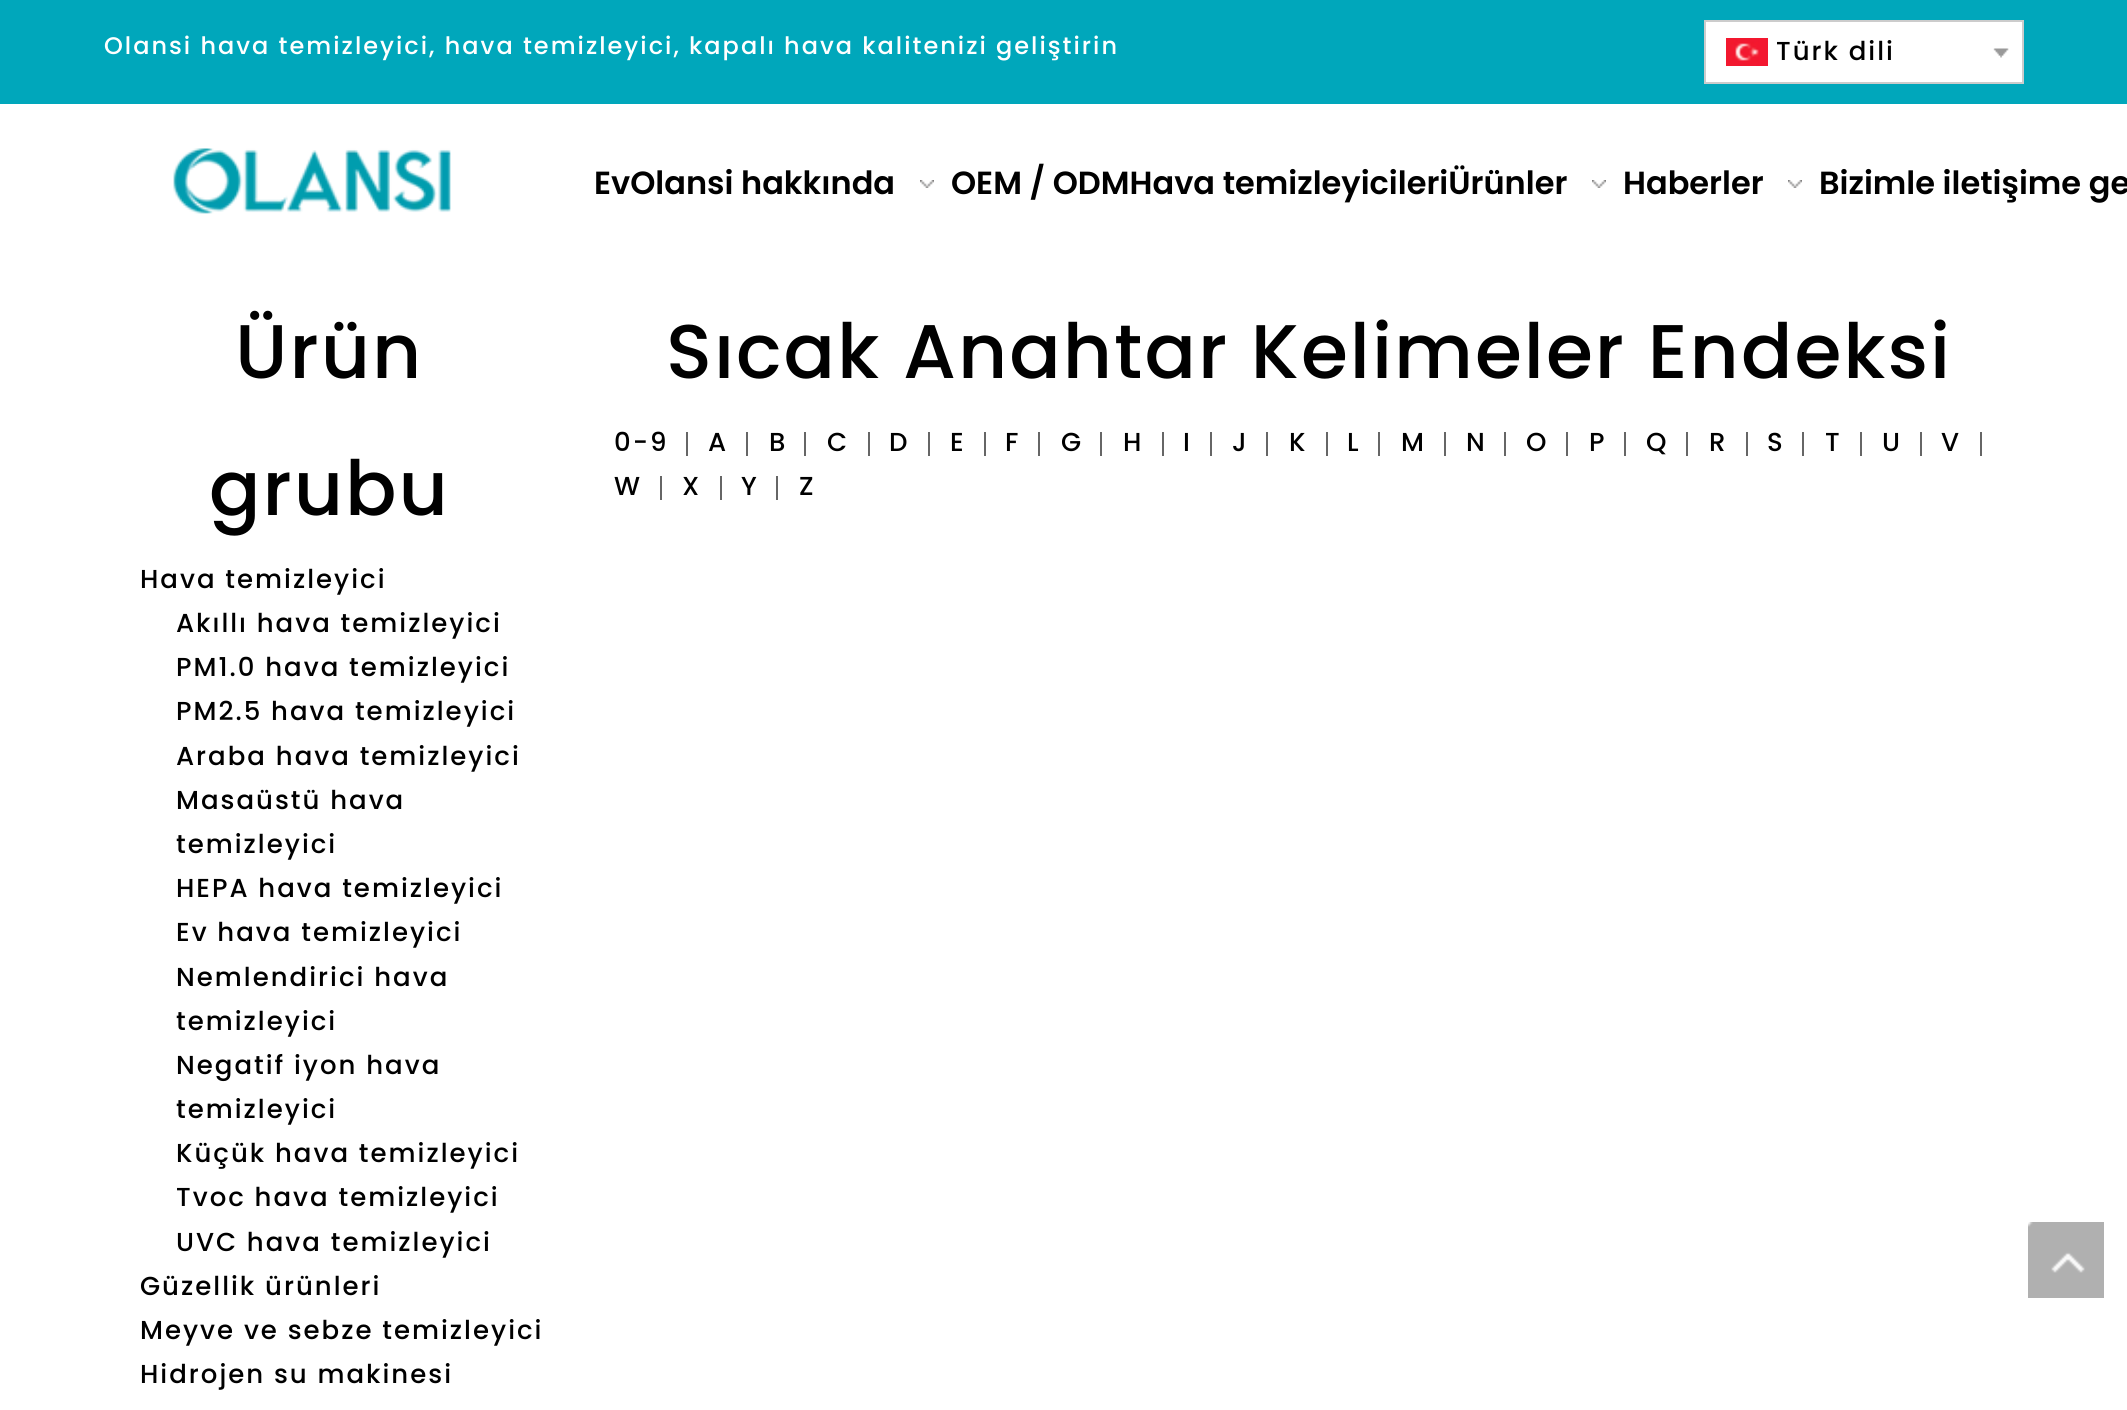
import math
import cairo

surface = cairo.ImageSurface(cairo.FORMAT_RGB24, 2127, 1410)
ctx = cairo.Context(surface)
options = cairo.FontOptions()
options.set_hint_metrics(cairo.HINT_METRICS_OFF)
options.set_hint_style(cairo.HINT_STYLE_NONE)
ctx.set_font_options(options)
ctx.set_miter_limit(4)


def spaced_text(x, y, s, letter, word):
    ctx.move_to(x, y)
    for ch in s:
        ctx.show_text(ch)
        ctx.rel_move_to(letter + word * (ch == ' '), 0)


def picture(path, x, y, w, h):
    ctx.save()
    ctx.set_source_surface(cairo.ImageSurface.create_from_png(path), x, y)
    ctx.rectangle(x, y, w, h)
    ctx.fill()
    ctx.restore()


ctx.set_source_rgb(1, 1, 1)
ctx.paint()
ctx.set_source_rgb(0, 0.655, 0.733)
ctx.rectangle(0, 0, 2127, 104)
ctx.fill()
ctx.select_font_face("Poppins Medium")
ctx.set_font_size(24)
ctx.set_source_rgb(1, 1, 1)
spaced_text(104, 54, "Olansi hava temizleyici, hava temizleyici, kapalı hava kalitenizi geliştirin", 2, 0)
ctx.rectangle(1705, 21, 318, 62)
ctx.fill_preserve()
ctx.set_source_rgb(0.8, 0.8, 0.8)
ctx.stroke()
picture("img1.png", 1726, 38, 42, 28)
ctx.set_font_size(26)
ctx.set_source_rgb(0, 0, 0)
spaced_text(1776, 60, "Türk dili", 2, 0)
picture("img2.png", 1993, 48, 16, 10)
picture("img3.png", 173, 148, 278, 66)
ctx.select_font_face("Poppins SemiBold")
ctx.set_font_size(32)
ctx.move_to(594, 194)
ctx.show_text("EvOlansi hakkında")
picture("img4.png", 920, 180, 14, 8)
ctx.move_to(951, 194)
ctx.show_text("OEM / ODMHava temizleyicileriÜrünler")
picture("img4.png", 1592, 180, 14, 8)
ctx.move_to(1623, 194)
ctx.show_text("Haberler")
picture("img4.png", 1788, 180, 14, 8)
ctx.move_to(1819, 194)
ctx.show_text("Bizimle iletişime ge")
ctx.select_font_face("Poppins Medium")
ctx.set_font_size(76)
spaced_text(235, 378, "Ürün", 2, 0)
spaced_text(209, 515, "grubu", 2, 0)
ctx.set_font_size(26)
spaced_text(140, 588, "Hava temizleyici", 2, 0)
spaced_text(176, 632, "Akıllı hava temizleyici", 2, 0)
spaced_text(176, 676, "PM1.0 hava temizleyici", 2, 0)
spaced_text(176, 720, "PM2.5 hava temizleyici", 2, 0)
spaced_text(176, 765, "Araba hava temizleyici", 2, 0)
spaced_text(176, 809, "Masaüstü hava", 2, 0)
spaced_text(176, 853, "temizleyici", 2, 0)
spaced_text(176, 897, "HEPA hava temizleyici", 2, 0)
spaced_text(176, 941, "Ev hava temizleyici", 2, 0)
spaced_text(176, 986, "Nemlendirici hava", 2, 0)
spaced_text(176, 1030, "temizleyici", 2, 0)
spaced_text(176, 1074, "Negatif iyon hava", 2, 0)
spaced_text(176, 1118, "temizleyici", 2, 0)
spaced_text(176, 1162, "Küçük hava temizleyici", 2, 0)
spaced_text(176, 1206, "Tvoc hava temizleyici", 2, 0)
spaced_text(176, 1251, "UVC hava temizleyici", 2, 0)
spaced_text(140, 1295, "Güzellik ürünleri", 2, 0)
spaced_text(140, 1339, "Meyve ve sebze temizleyici", 2, 0)
spaced_text(140, 1383, "Hidrojen su makinesi", 2, 0)
ctx.set_font_size(76)
spaced_text(666, 378, "Sıcak Anahtar Kelimeler Endeksi", 2, 0)
ctx.set_font_size(26)
spaced_text(614, 451, "0-9", 2, 0)
ctx.set_source_rgb(0.4, 0.4, 0.4)
ctx.rectangle(686, 432, 2, 24)
ctx.fill()
ctx.set_source_rgb(0, 0, 0)
spaced_text(708, 451, "A", 2, 0)
ctx.set_source_rgb(0.4, 0.4, 0.4)
ctx.rectangle(746, 432, 2, 24)
ctx.fill()
ctx.set_source_rgb(0, 0, 0)
spaced_text(769, 451, "B", 2, 0)
ctx.set_source_rgb(0.4, 0.4, 0.4)
ctx.rectangle(804, 432, 2, 24)
ctx.fill()
ctx.set_source_rgb(0, 0, 0)
spaced_text(827, 451, "C", 2, 0)
ctx.set_source_rgb(0.4, 0.4, 0.4)
ctx.rectangle(868, 432, 2, 24)
ctx.fill()
ctx.set_source_rgb(0, 0, 0)
spaced_text(889, 451, "D", 2, 0)
ctx.set_source_rgb(0.4, 0.4, 0.4)
ctx.rectangle(928, 432, 2, 24)
ctx.fill()
ctx.set_source_rgb(0, 0, 0)
spaced_text(950, 451, "E", 2, 0)
ctx.set_source_rgb(0.4, 0.4, 0.4)
ctx.rectangle(984, 432, 2, 24)
ctx.fill()
ctx.set_source_rgb(0, 0, 0)
spaced_text(1005, 451, "F", 2, 0)
ctx.set_source_rgb(0.4, 0.4, 0.4)
ctx.rectangle(1038, 432, 2, 24)
ctx.fill()
ctx.set_source_rgb(0, 0, 0)
spaced_text(1061, 451, "G", 2, 0)
ctx.set_source_rgb(0.4, 0.4, 0.4)
ctx.rectangle(1100, 432, 2, 24)
ctx.fill()
ctx.set_source_rgb(0, 0, 0)
spaced_text(1123, 451, "H", 2, 0)
ctx.set_source_rgb(0.4, 0.4, 0.4)
ctx.rectangle(1162, 432, 2, 24)
ctx.fill()
ctx.set_source_rgb(0, 0, 0)
spaced_text(1183, 451, "I", 2, 0)
ctx.set_source_rgb(0.4, 0.4, 0.4)
ctx.rectangle(1210, 432, 2, 24)
ctx.fill()
ctx.set_source_rgb(0, 0, 0)
spaced_text(1232, 451, "J", 2, 0)
ctx.set_source_rgb(0.4, 0.4, 0.4)
ctx.rectangle(1266, 432, 2, 24)
ctx.fill()
ctx.set_source_rgb(0, 0, 0)
spaced_text(1289, 451, "K", 2, 0)
ctx.set_source_rgb(0.4, 0.4, 0.4)
ctx.rectangle(1326, 432, 2, 24)
ctx.fill()
ctx.set_source_rgb(0, 0, 0)
spaced_text(1347, 451, "L", 2, 0)
ctx.set_source_rgb(0.4, 0.4, 0.4)
ctx.rectangle(1378, 432, 2, 24)
ctx.fill()
ctx.set_source_rgb(0, 0, 0)
spaced_text(1401, 451, "M", 2, 0)
ctx.set_source_rgb(0.4, 0.4, 0.4)
ctx.rectangle(1444, 432, 2, 24)
ctx.fill()
ctx.set_source_rgb(0, 0, 0)
spaced_text(1466, 451, "N", 2, 0)
ctx.set_source_rgb(0.4, 0.4, 0.4)
ctx.rectangle(1504, 432, 2, 24)
ctx.fill()
ctx.set_source_rgb(0, 0, 0)
spaced_text(1526, 451, "O", 2, 0)
ctx.set_source_rgb(0.4, 0.4, 0.4)
ctx.rectangle(1566, 432, 2, 24)
ctx.fill()
ctx.set_source_rgb(0, 0, 0)
spaced_text(1589, 451, "P", 2, 0)
ctx.set_source_rgb(0.4, 0.4, 0.4)
ctx.rectangle(1624, 432, 2, 24)
ctx.fill()
ctx.set_source_rgb(0, 0, 0)
spaced_text(1646, 451, "Q", 2, 0)
ctx.set_source_rgb(0.4, 0.4, 0.4)
ctx.rectangle(1686, 432, 2, 24)
ctx.fill()
ctx.set_source_rgb(0, 0, 0)
spaced_text(1709, 451, "R", 2, 0)
ctx.set_source_rgb(0.4, 0.4, 0.4)
ctx.rectangle(1746, 432, 2, 24)
ctx.fill()
ctx.set_source_rgb(0, 0, 0)
spaced_text(1767, 451, "S", 2, 0)
ctx.set_source_rgb(0.4, 0.4, 0.4)
ctx.rectangle(1802, 432, 2, 24)
ctx.fill()
ctx.set_source_rgb(0, 0, 0)
spaced_text(1825, 451, "T", 2, 0)
ctx.set_source_rgb(0.4, 0.4, 0.4)
ctx.rectangle(1860, 432, 2, 24)
ctx.fill()
ctx.set_source_rgb(0, 0, 0)
spaced_text(1882, 451, "U", 2, 0)
ctx.set_source_rgb(0.4, 0.4, 0.4)
ctx.rectangle(1920, 432, 2, 24)
ctx.fill()
ctx.set_source_rgb(0, 0, 0)
spaced_text(1941, 451, "V", 2, 0)
ctx.set_source_rgb(0.4, 0.4, 0.4)
ctx.rectangle(1980, 432, 2, 24)
ctx.fill()
ctx.set_source_rgb(0, 0, 0)
spaced_text(614, 495, "W", 2, 0)
ctx.set_source_rgb(0.4, 0.4, 0.4)
ctx.rectangle(660, 476, 2, 24)
ctx.fill()
ctx.set_source_rgb(0, 0, 0)
spaced_text(682, 495, "X", 2, 0)
ctx.set_source_rgb(0.4, 0.4, 0.4)
ctx.rectangle(720, 476, 2, 24)
ctx.fill()
ctx.set_source_rgb(0, 0, 0)
spaced_text(741, 495, "Y", 2, 0)
ctx.set_source_rgb(0.4, 0.4, 0.4)
ctx.rectangle(776, 476, 2, 24)
ctx.fill()
ctx.set_source_rgb(0, 0, 0)
spaced_text(799, 495, "Z", 2, 0)
picture("img5.png", 2028, 1222, 76, 76)
surface.write_to_png("page.png")
